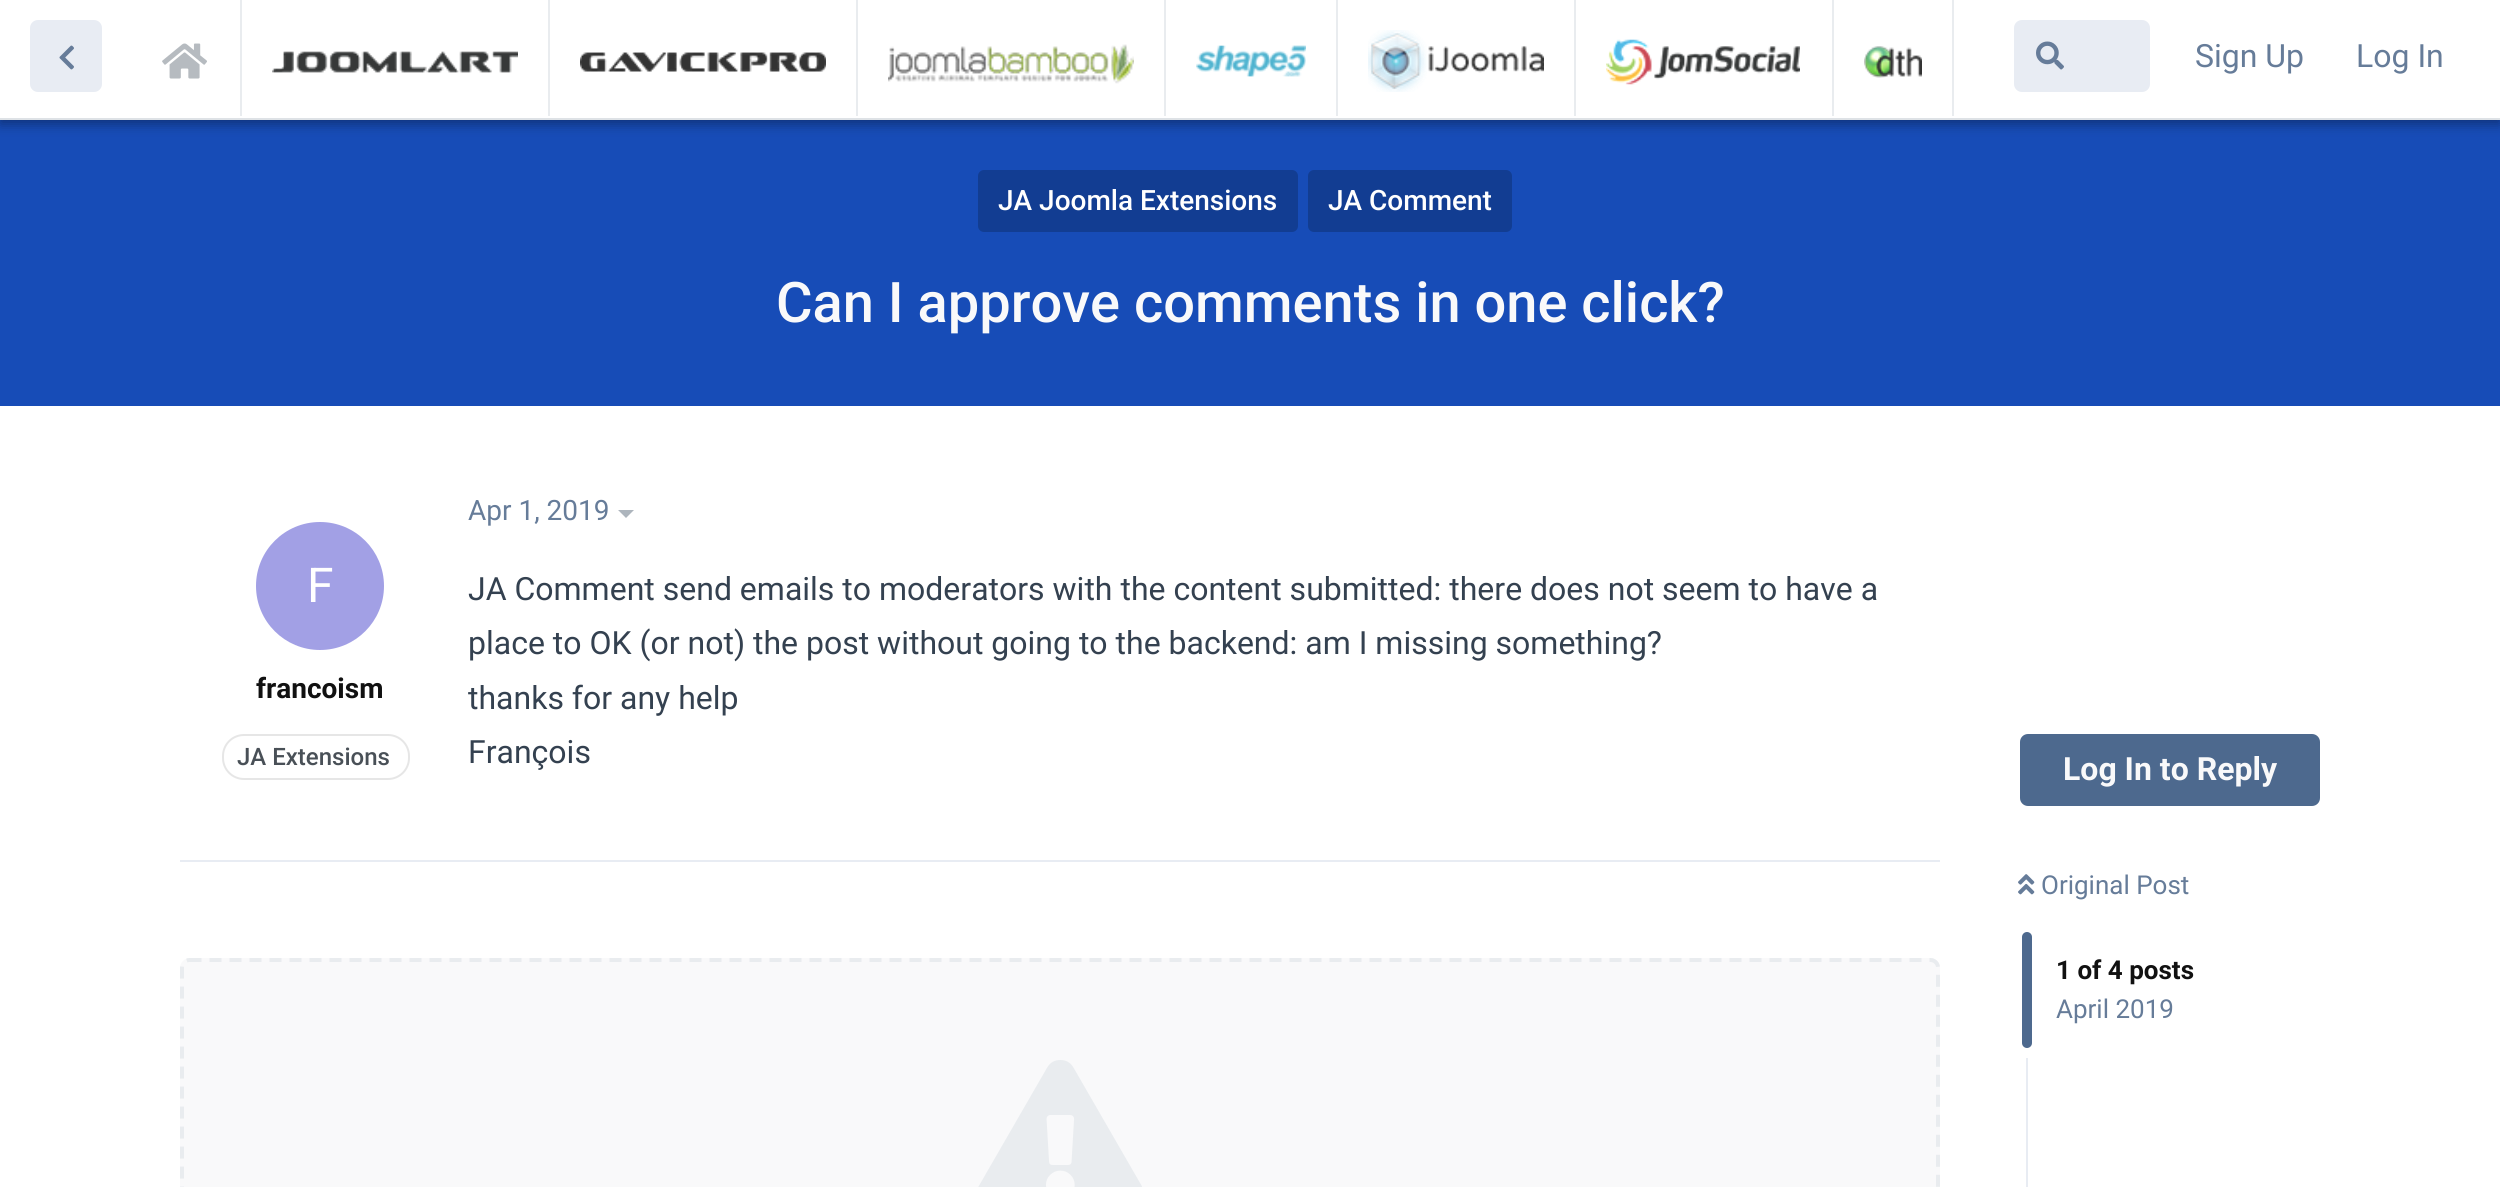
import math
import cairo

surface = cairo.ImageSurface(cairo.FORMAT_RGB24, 2500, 1187)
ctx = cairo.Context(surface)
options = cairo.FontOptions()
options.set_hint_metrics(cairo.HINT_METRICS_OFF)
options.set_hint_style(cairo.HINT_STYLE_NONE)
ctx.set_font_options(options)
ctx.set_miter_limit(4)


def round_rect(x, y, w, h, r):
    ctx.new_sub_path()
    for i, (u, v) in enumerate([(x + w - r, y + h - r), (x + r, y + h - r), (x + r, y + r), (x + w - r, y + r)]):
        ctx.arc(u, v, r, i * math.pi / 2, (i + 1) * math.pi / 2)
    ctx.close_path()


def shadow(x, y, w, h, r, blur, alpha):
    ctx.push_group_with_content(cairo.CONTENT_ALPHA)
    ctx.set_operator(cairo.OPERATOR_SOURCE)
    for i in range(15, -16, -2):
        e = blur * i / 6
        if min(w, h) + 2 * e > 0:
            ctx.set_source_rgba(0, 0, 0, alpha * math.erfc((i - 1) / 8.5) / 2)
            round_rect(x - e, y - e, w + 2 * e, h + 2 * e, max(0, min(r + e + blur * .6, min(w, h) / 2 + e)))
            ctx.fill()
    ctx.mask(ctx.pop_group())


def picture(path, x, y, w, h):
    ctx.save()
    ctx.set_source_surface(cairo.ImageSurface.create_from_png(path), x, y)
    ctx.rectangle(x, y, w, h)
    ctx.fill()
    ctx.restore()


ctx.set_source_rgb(1, 1, 1)
ctx.paint()
ctx.set_source_rgb(0.09, 0.298, 0.718)
ctx.rectangle(0, 120, 2500, 286)
ctx.fill()
ctx.set_source_rgb(0, 0, 0)
shadow(0, 4, 2500, 120, 0, 6, 0.35)
ctx.set_source_rgb(1, 1, 1)
ctx.rectangle(0, 0, 2500, 118)
ctx.fill()
ctx.set_source_rgb(0.871, 0.886, 0.902)
ctx.rectangle(0, 118, 2500, 2)
ctx.fill()
ctx.set_source_rgb(0.91, 0.925, 0.953)
round_rect(30, 20, 72, 72, 8)
ctx.fill()
picture("img1.png", 59, 45, 15, 25)
picture("img2.png", 162, 43, 45, 36)
ctx.set_source_rgb(0.914, 0.925, 0.937)
ctx.rectangle(1952, 0, 2, 116)
ctx.fill()
ctx.rectangle(240, 0, 2, 116)
ctx.fill()
picture("img3.png", 272, 51, 246, 22)
ctx.rectangle(548, 0, 2, 116)
ctx.fill()
picture("img4.png", 580, 52, 246, 20)
ctx.rectangle(856, 0, 2, 116)
ctx.fill()
picture("img5.png", 888, 44, 246, 40)
ctx.rectangle(1164, 0, 2, 116)
ctx.fill()
picture("img6.png", 1196, 45, 110, 32)
ctx.rectangle(1336, 0, 2, 116)
ctx.fill()
picture("img7.png", 1368, 30, 176, 62)
ctx.rectangle(1574, 0, 2, 116)
ctx.fill()
picture("img8.png", 1606, 39, 194, 46)
ctx.rectangle(1832, 0, 2, 116)
ctx.fill()
picture("img9.png", 1864, 46, 58, 32)
ctx.set_source_rgb(0.91, 0.925, 0.953)
round_rect(2014, 20, 136, 72, 8)
ctx.fill()
picture("img10.png", 2036, 41, 28, 29)
ctx.select_font_face("Roboto")
ctx.set_font_size(32)
ctx.set_source_rgb(0.4, 0.486, 0.6)
ctx.move_to(2195, 67)
ctx.show_text("Sign Up")
ctx.move_to(2356, 67)
ctx.show_text("Log In")
ctx.set_source_rgb(0.071, 0.239, 0.573)
round_rect(978, 170, 320, 62, 6)
ctx.fill()
ctx.select_font_face("Roboto Medium")
ctx.set_font_size(28)
ctx.set_source_rgb(1, 1, 1)
ctx.move_to(998, 210)
ctx.show_text("JA Joomla Extensions")
ctx.set_source_rgb(0.071, 0.239, 0.573)
round_rect(1308, 170, 204, 62, 6)
ctx.fill()
ctx.set_source_rgb(1, 1, 1)
ctx.move_to(1328, 210)
ctx.show_text("JA Comment")
ctx.set_font_size(56)
ctx.set_source_rgb(0.973, 0.976, 0.98)
ctx.move_to(776, 322)
ctx.show_text("Can I approve comments in one click?")
ctx.set_source_rgb(0.91, 0.925, 0.953)
ctx.rectangle(180, 860, 1760, 2)
ctx.fill()
ctx.select_font_face("Roboto")
ctx.set_font_size(28)
ctx.set_source_rgb(0.4, 0.486, 0.6)
ctx.move_to(468, 520)
ctx.show_text("Apr 1, 2019")
ctx.set_source_rgb(0.678, 0.71, 0.741)
ctx.new_path()
ctx.move_to(618, 510)
ctx.line_to(634, 510)
ctx.line_to(626, 518)
ctx.close_path()
ctx.fill()
ctx.set_source_rgb(0.635, 0.627, 0.898)
ctx.arc(320, 586, 64, 0, 2 * math.pi)
ctx.fill()
ctx.set_font_size(48)
ctx.set_source_rgb(1, 1, 1)
ctx.move_to(307, 602)
ctx.show_text("F")
ctx.select_font_face("Roboto", cairo.FONT_SLANT_NORMAL, cairo.FONT_WEIGHT_BOLD)
ctx.set_font_size(28)
ctx.set_source_rgb(0.067, 0.067, 0.067)
ctx.move_to(256, 698)
ctx.show_text("francoism")
round_rect(223, 735, 186, 44, 21)
ctx.set_source_rgb(0.902, 0.902, 0.902)
ctx.stroke()
ctx.select_font_face("Roboto Medium")
ctx.set_font_size(24)
ctx.set_source_rgb(0.286, 0.314, 0.341)
ctx.move_to(237, 765)
ctx.show_text("JA Extensions")
ctx.select_font_face("Roboto")
ctx.set_font_size(32)
ctx.set_source_rgb(0.204, 0.255, 0.314)
ctx.move_to(468, 600)
ctx.show_text("JA Comment send emails to moderators with the content submitted: there does not seem to have a")
ctx.move_to(468, 654)
ctx.show_text("place to OK (or not) the post without going to the backend: am I missing something?")
ctx.move_to(468, 709)
ctx.show_text("thanks for any help")
ctx.move_to(468, 763)
ctx.show_text("François")
ctx.set_source_rgb(0.973, 0.976, 0.98)
round_rect(180, 958, 1760, 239, 10)
ctx.fill()
ctx.new_path()
ctx.move_to(189.5, 960)
ctx.line_to(1930.5, 960)
ctx.curve_to(1934.5, 960, 1938, 963.5, 1938, 967.5)
ctx.line_to(1938, 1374.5)
ctx.curve_to(1938, 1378.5, 1934.5, 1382, 1930.5, 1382)
ctx.line_to(189.5, 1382)
ctx.curve_to(185.5, 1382, 182, 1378.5, 182, 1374.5)
ctx.line_to(182, 967.5)
ctx.curve_to(182, 963.5, 185.5, 960, 189.5, 960)
ctx.close_path()
ctx.set_source_rgb(0.914, 0.925, 0.937)
ctx.set_line_width(4)
ctx.set_dash([12, 8])
ctx.stroke()
picture("img11.png", 978, 1060, 164, 127)
ctx.set_source_rgb(0.302, 0.412, 0.557)
round_rect(2020, 734, 300, 72, 8)
ctx.fill()
ctx.select_font_face("Roboto", cairo.FONT_SLANT_NORMAL, cairo.FONT_WEIGHT_BOLD)
ctx.set_source_rgb(0.973, 0.976, 0.98)
ctx.move_to(2063, 780)
ctx.show_text("Log In to Reply")
picture("img12.png", 2018, 874, 17, 21)
ctx.select_font_face("Roboto")
ctx.set_font_size(26)
ctx.set_source_rgb(0.4, 0.486, 0.6)
ctx.move_to(2041, 894)
ctx.show_text("Original Post")
ctx.set_source_rgb(0.302, 0.412, 0.557)
round_rect(2022, 932, 10, 116, 5)
ctx.fill()
ctx.select_font_face("Roboto", cairo.FONT_SLANT_NORMAL, cairo.FONT_WEIGHT_BOLD)
ctx.set_source_rgb(0.067, 0.067, 0.067)
ctx.move_to(2056, 979)
ctx.show_text("1 of 4 posts")
ctx.select_font_face("Roboto")
ctx.set_source_rgb(0.4, 0.486, 0.6)
ctx.move_to(2056, 1018)
ctx.show_text("April 2019")
ctx.set_source_rgb(0.91, 0.925, 0.953)
ctx.rectangle(2026, 1058, 2, 129)
ctx.fill()
surface.write_to_png("page.png")
